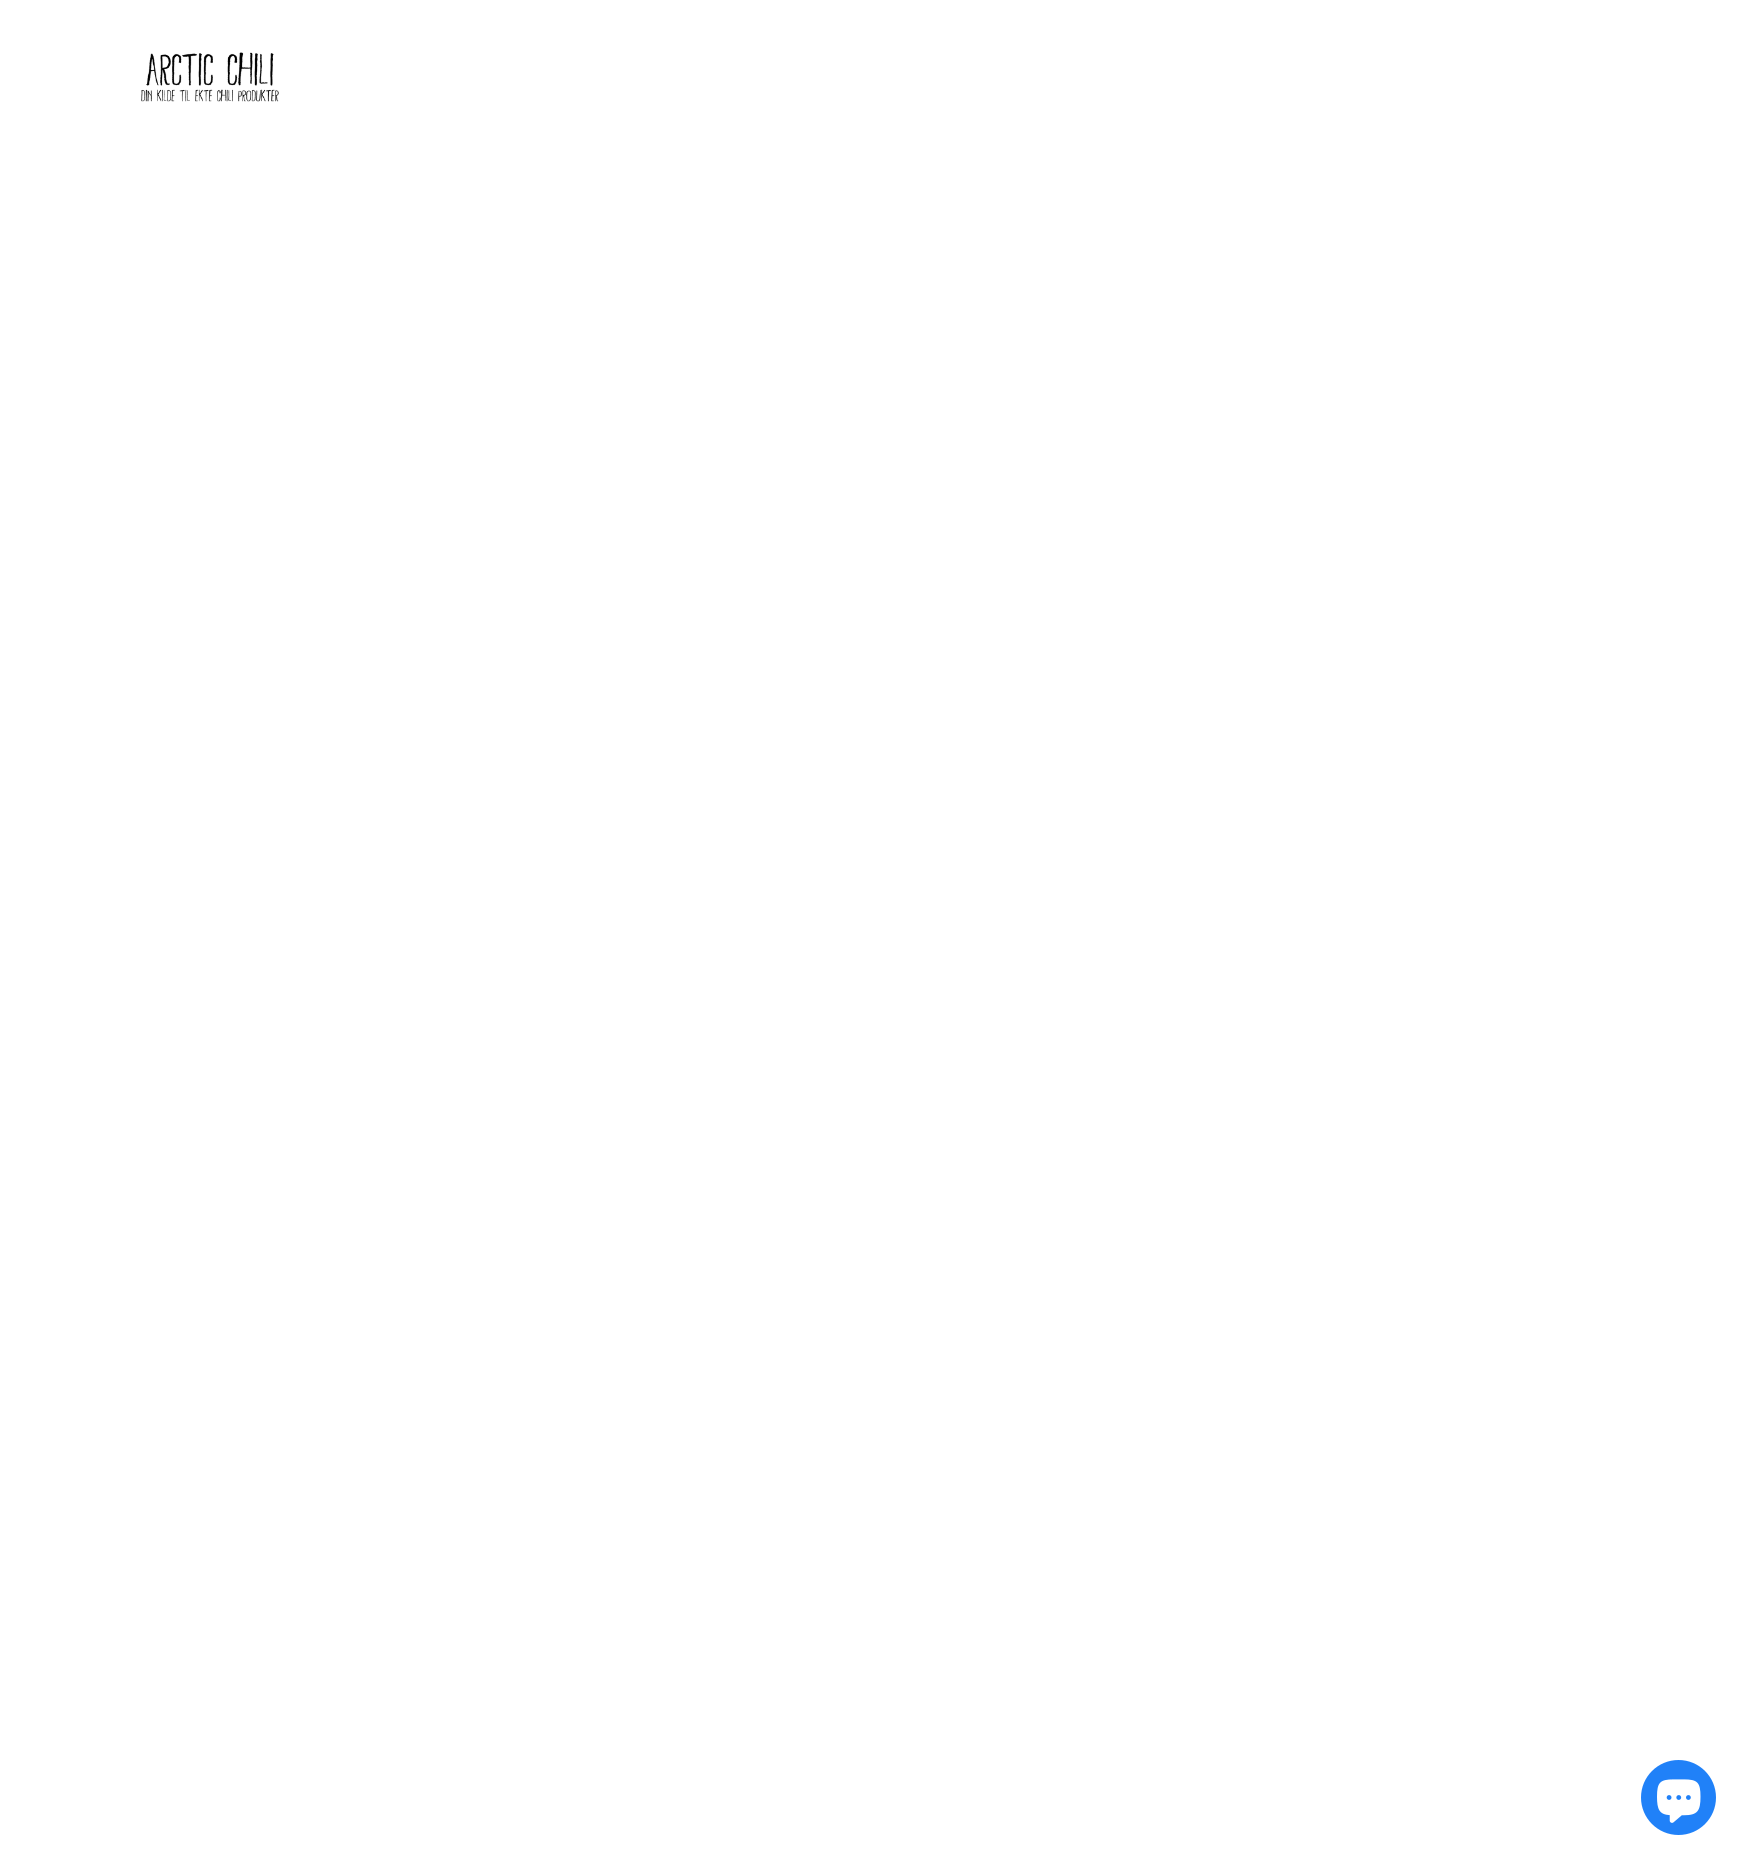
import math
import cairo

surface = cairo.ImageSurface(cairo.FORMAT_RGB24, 1743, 1861)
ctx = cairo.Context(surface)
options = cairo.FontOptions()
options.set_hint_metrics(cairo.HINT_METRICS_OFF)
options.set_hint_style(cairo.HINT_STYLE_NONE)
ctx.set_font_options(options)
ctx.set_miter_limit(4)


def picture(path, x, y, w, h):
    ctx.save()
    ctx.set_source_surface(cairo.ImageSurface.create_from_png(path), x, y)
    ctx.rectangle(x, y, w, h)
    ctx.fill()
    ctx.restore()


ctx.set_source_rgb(1, 1, 1)
ctx.paint()
picture("img1.png", 141, 52, 138, 50)
ctx.set_source_rgb(0.125, 0.506, 0.969)
ctx.arc(1678.5, 1797.5, 37.5, 0, 2 * math.pi)
ctx.fill()
picture("img2.png", 1657, 1779, 44, 44)
surface.write_to_png("page.png")
